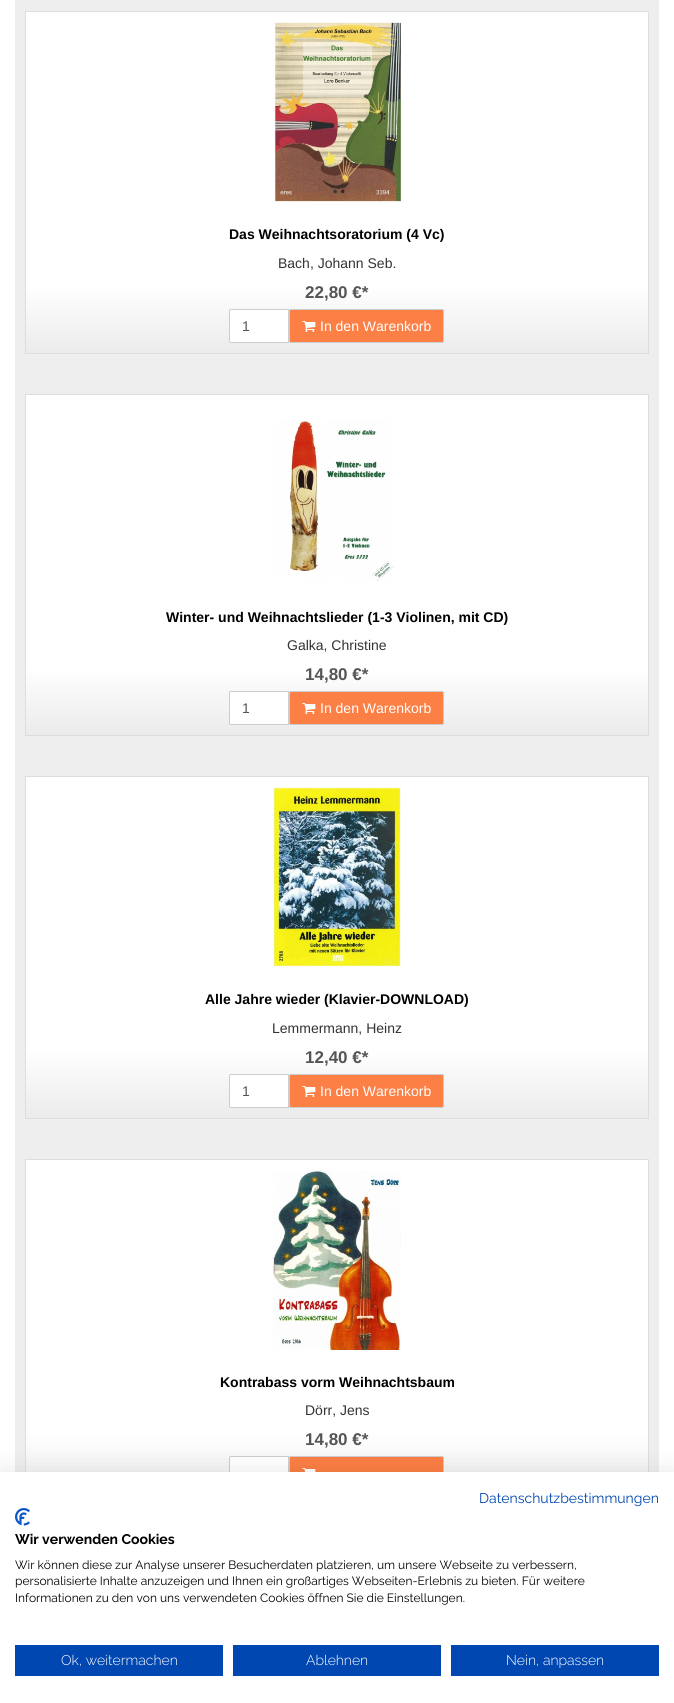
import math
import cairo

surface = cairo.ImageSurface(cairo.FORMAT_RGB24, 674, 1703)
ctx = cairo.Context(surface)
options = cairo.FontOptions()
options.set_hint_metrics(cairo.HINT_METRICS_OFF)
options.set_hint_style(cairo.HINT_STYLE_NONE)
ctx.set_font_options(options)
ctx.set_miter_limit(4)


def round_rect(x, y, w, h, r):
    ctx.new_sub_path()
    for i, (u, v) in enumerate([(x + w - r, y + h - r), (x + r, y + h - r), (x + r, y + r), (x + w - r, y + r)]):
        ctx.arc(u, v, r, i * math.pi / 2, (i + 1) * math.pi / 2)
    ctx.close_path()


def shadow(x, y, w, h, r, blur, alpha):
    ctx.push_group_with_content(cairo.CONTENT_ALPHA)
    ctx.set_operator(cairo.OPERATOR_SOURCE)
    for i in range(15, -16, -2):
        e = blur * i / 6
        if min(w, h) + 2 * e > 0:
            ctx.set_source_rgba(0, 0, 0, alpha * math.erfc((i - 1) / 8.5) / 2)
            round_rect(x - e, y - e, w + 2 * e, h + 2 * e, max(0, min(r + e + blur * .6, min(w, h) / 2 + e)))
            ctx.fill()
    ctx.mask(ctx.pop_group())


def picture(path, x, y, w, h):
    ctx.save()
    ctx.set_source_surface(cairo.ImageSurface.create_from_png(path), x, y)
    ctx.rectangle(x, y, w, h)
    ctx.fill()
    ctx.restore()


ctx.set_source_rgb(1, 1, 1)
ctx.paint()
ctx.set_source_rgb(0.933, 0.933, 0.933)
ctx.rectangle(15, 0, 644, 1472)
ctx.fill()
gradient = cairo.LinearGradient(337, 12, 337, 353)
gradient.add_color_stop_rgba(0.8, 1, 1, 1, 1)
gradient.add_color_stop_rgba(1, 0.922, 0.922, 0.922, 1)
ctx.set_source(gradient)
ctx.rectangle(26, 12, 622, 341)
ctx.fill()
ctx.rectangle(25.5, 11.5, 623, 342)
ctx.set_source_rgb(0.867, 0.867, 0.867)
ctx.set_line_width(1)
ctx.stroke()
picture("img1.png", 273, 22, 128, 180)
ctx.select_font_face("Liberation Sans", cairo.FONT_SLANT_NORMAL, cairo.FONT_WEIGHT_BOLD)
ctx.set_font_size(14)
ctx.set_source_rgb(0, 0, 0)
ctx.move_to(229, 239)
ctx.show_text("Das Weihnachtsoratorium (4 Vc)")
ctx.select_font_face("Liberation Sans")
ctx.set_source_rgb(0.2, 0.2, 0.2)
ctx.move_to(278, 268)
ctx.show_text("Bach, Johann Seb.")
ctx.select_font_face("Liberation Sans", cairo.FONT_SLANT_NORMAL, cairo.FONT_WEIGHT_BOLD)
ctx.set_font_size(17)
ctx.set_source_rgb(0.333, 0.333, 0.333)
ctx.move_to(305, 298)
ctx.show_text("22,80 €*")
ctx.set_source_rgb(1, 1, 1)
ctx.new_path()
ctx.move_to(231, 309.5)
ctx.line_to(288.5, 309.5)
ctx.line_to(288.5, 342.5)
ctx.line_to(231, 342.5)
ctx.curve_to(230, 342.5, 229.5, 342, 229.5, 341)
ctx.line_to(229.5, 311)
ctx.curve_to(229.5, 310, 230, 309.5, 231, 309.5)
ctx.close_path()
ctx.fill_preserve()
ctx.set_source_rgb(0.8, 0.8, 0.8)
ctx.stroke()
ctx.select_font_face("Liberation Sans")
ctx.set_font_size(14)
ctx.set_source_rgb(0.333, 0.333, 0.333)
ctx.move_to(242, 331)
ctx.show_text("1")
ctx.set_source_rgb(0.988, 0.498, 0.271)
round_rect(289.5, 309.5, 154, 33, 1.5)
ctx.fill_preserve()
ctx.set_source_rgb(0.8, 0.8, 0.8)
ctx.stroke()
picture("img2.png", 302, 321, 14, 11)
ctx.set_source_rgb(1, 1, 1)
ctx.move_to(320, 331)
ctx.show_text("In den Warenkorb")
gradient = cairo.LinearGradient(337, 395, 337, 735)
gradient.add_color_stop_rgba(0.8, 1, 1, 1, 1)
gradient.add_color_stop_rgba(1, 0.922, 0.922, 0.922, 1)
ctx.set_source(gradient)
ctx.rectangle(26, 395, 622, 340)
ctx.fill()
ctx.rectangle(25.5, 394.5, 623, 341)
ctx.set_source_rgb(0.867, 0.867, 0.867)
ctx.stroke()
picture("img3.png", 274, 420, 120, 161)
ctx.select_font_face("Liberation Sans", cairo.FONT_SLANT_NORMAL, cairo.FONT_WEIGHT_BOLD)
ctx.set_source_rgb(0, 0, 0)
ctx.move_to(166, 622)
ctx.show_text("Winter- und Weihnachtslieder (1-3 Violinen, mit CD)")
ctx.select_font_face("Liberation Sans")
ctx.set_source_rgb(0.2, 0.2, 0.2)
ctx.move_to(287, 650)
ctx.show_text("Galka, Christine")
ctx.select_font_face("Liberation Sans", cairo.FONT_SLANT_NORMAL, cairo.FONT_WEIGHT_BOLD)
ctx.set_font_size(17)
ctx.set_source_rgb(0.333, 0.333, 0.333)
ctx.move_to(305, 680)
ctx.show_text("14,80 €*")
ctx.set_source_rgb(1, 1, 1)
ctx.new_path()
ctx.move_to(231, 691.5)
ctx.line_to(288.5, 691.5)
ctx.line_to(288.5, 724.5)
ctx.line_to(231, 724.5)
ctx.curve_to(230, 724.5, 229.5, 724, 229.5, 723)
ctx.line_to(229.5, 693)
ctx.curve_to(229.5, 692, 230, 691.5, 231, 691.5)
ctx.close_path()
ctx.fill_preserve()
ctx.set_source_rgb(0.8, 0.8, 0.8)
ctx.stroke()
ctx.select_font_face("Liberation Sans")
ctx.set_font_size(14)
ctx.set_source_rgb(0.333, 0.333, 0.333)
ctx.move_to(242, 713)
ctx.show_text("1")
ctx.set_source_rgb(0.988, 0.498, 0.271)
round_rect(289.5, 691.5, 154, 33, 1.5)
ctx.fill_preserve()
ctx.set_source_rgb(0.8, 0.8, 0.8)
ctx.stroke()
picture("img2.png", 302, 703, 14, 11)
ctx.set_source_rgb(1, 1, 1)
ctx.move_to(320, 713)
ctx.show_text("In den Warenkorb")
gradient = cairo.LinearGradient(337, 777, 337, 1118)
gradient.add_color_stop_rgba(0.8, 1, 1, 1, 1)
gradient.add_color_stop_rgba(1, 0.922, 0.922, 0.922, 1)
ctx.set_source(gradient)
ctx.rectangle(26, 777, 622, 341)
ctx.fill()
ctx.rectangle(25.5, 776.5, 623, 342)
ctx.set_source_rgb(0.867, 0.867, 0.867)
ctx.stroke()
picture("img4.png", 273, 787, 128, 180)
ctx.select_font_face("Liberation Sans", cairo.FONT_SLANT_NORMAL, cairo.FONT_WEIGHT_BOLD)
ctx.set_source_rgb(0, 0, 0)
ctx.move_to(205, 1004)
ctx.show_text("Alle Jahre wieder (Klavier-DOWNLOAD)")
ctx.select_font_face("Liberation Sans")
ctx.set_source_rgb(0.2, 0.2, 0.2)
ctx.move_to(272, 1033)
ctx.show_text("Lemmermann, Heinz")
ctx.select_font_face("Liberation Sans", cairo.FONT_SLANT_NORMAL, cairo.FONT_WEIGHT_BOLD)
ctx.set_font_size(17)
ctx.set_source_rgb(0.333, 0.333, 0.333)
ctx.move_to(305, 1063)
ctx.show_text("12,40 €*")
ctx.set_source_rgb(1, 1, 1)
ctx.new_path()
ctx.move_to(231, 1074.5)
ctx.line_to(288.5, 1074.5)
ctx.line_to(288.5, 1107.5)
ctx.line_to(231, 1107.5)
ctx.curve_to(230, 1107.5, 229.5, 1107, 229.5, 1106)
ctx.line_to(229.5, 1076)
ctx.curve_to(229.5, 1075, 230, 1074.5, 231, 1074.5)
ctx.close_path()
ctx.fill_preserve()
ctx.set_source_rgb(0.8, 0.8, 0.8)
ctx.stroke()
ctx.select_font_face("Liberation Sans")
ctx.set_font_size(14)
ctx.set_source_rgb(0.333, 0.333, 0.333)
ctx.move_to(242, 1096)
ctx.show_text("1")
ctx.set_source_rgb(0.988, 0.498, 0.271)
round_rect(289.5, 1074.5, 154, 33, 1.5)
ctx.fill_preserve()
ctx.set_source_rgb(0.8, 0.8, 0.8)
ctx.stroke()
picture("img2.png", 302, 1086, 14, 11)
ctx.set_source_rgb(1, 1, 1)
ctx.move_to(320, 1096)
ctx.show_text("In den Warenkorb")
gradient = cairo.LinearGradient(337, 1160, 337, 1500)
gradient.add_color_stop_rgba(0.8, 1, 1, 1, 1)
gradient.add_color_stop_rgba(1, 0.922, 0.922, 0.922, 1)
ctx.set_source(gradient)
ctx.rectangle(26, 1160, 622, 312)
ctx.fill()
ctx.rectangle(25.5, 1159.5, 623, 341)
ctx.set_source_rgb(0.867, 0.867, 0.867)
ctx.stroke()
picture("img5.png", 273, 1170, 128, 180)
ctx.select_font_face("Liberation Sans", cairo.FONT_SLANT_NORMAL, cairo.FONT_WEIGHT_BOLD)
ctx.set_source_rgb(0, 0, 0)
ctx.move_to(220, 1387)
ctx.show_text("Kontrabass vorm Weihnachtsbaum")
ctx.select_font_face("Liberation Sans")
ctx.set_source_rgb(0.2, 0.2, 0.2)
ctx.move_to(305, 1415)
ctx.show_text("Dörr, Jens")
ctx.select_font_face("Liberation Sans", cairo.FONT_SLANT_NORMAL, cairo.FONT_WEIGHT_BOLD)
ctx.set_font_size(17)
ctx.set_source_rgb(0.333, 0.333, 0.333)
ctx.move_to(305, 1445)
ctx.show_text("14,80 €*")
ctx.set_source_rgb(1, 1, 1)
ctx.new_path()
ctx.move_to(231, 1456.5)
ctx.line_to(288.5, 1456.5)
ctx.line_to(288.5, 1489.5)
ctx.line_to(231, 1489.5)
ctx.curve_to(230, 1489.5, 229.5, 1489, 229.5, 1488)
ctx.line_to(229.5, 1458)
ctx.curve_to(229.5, 1457, 230, 1456.5, 231, 1456.5)
ctx.close_path()
ctx.fill_preserve()
ctx.set_source_rgb(0.8, 0.8, 0.8)
ctx.stroke()
ctx.set_source_rgb(0.988, 0.498, 0.271)
round_rect(289.5, 1456.5, 154, 33, 1.5)
ctx.fill_preserve()
ctx.set_source_rgb(0.8, 0.8, 0.8)
ctx.stroke()
picture("img6.png", 302, 1468, 14, 4)
ctx.set_source_rgb(0, 0, 0)
shadow(0, 1472, 674, 231, 0, 12, 0.1)
ctx.set_source_rgb(1, 1, 1)
ctx.rectangle(0, 1472, 674, 231)
ctx.fill()
ctx.select_font_face("Raleway")
ctx.set_font_size(14)
ctx.set_source_rgb(0, 0.278, 0.698)
ctx.move_to(479, 1503)
ctx.show_text("Datenschutzbestimmungen")
picture("img7.png", 15, 1508, 15, 18)
ctx.select_font_face("Raleway", cairo.FONT_SLANT_NORMAL, cairo.FONT_WEIGHT_BOLD)
ctx.set_source_rgb(0, 0, 0)
ctx.move_to(15, 1544)
ctx.show_text("Wir verwenden Cookies")
ctx.select_font_face("Raleway")
ctx.set_font_size(12)
ctx.move_to(15, 1569)
ctx.show_text("Wir können diese zur Analyse unserer Besucherdaten platzieren, um unsere Webseite zu verbessern,")
ctx.move_to(15, 1585)
ctx.show_text("personalisierte Inhalte anzuzeigen und Ihnen ein großartiges Webseiten-Erlebnis zu bieten. Für weitere")
ctx.move_to(15, 1602)
ctx.show_text("Informationen zu den von uns verwendeten Cookies öffnen Sie die Einstellungen.")
ctx.set_source_rgb(0, 0.278, 0.698)
ctx.rectangle(15, 1645, 208, 31)
ctx.fill()
ctx.select_font_face("Raleway Light")
ctx.set_font_size(14)
ctx.set_source_rgb(1, 1, 1)
ctx.move_to(61, 1665)
ctx.show_text("Ok, weitermachen")
ctx.set_source_rgb(0, 0.278, 0.698)
ctx.rectangle(233, 1645, 208, 31)
ctx.fill()
ctx.set_source_rgb(1, 1, 1)
ctx.move_to(306, 1665)
ctx.show_text("Ablehnen")
ctx.set_source_rgb(0, 0.278, 0.698)
ctx.rectangle(451, 1645, 208, 31)
ctx.fill()
ctx.set_source_rgb(1, 1, 1)
ctx.move_to(506, 1665)
ctx.show_text("Nein, anpassen")
surface.write_to_png("page.png")
